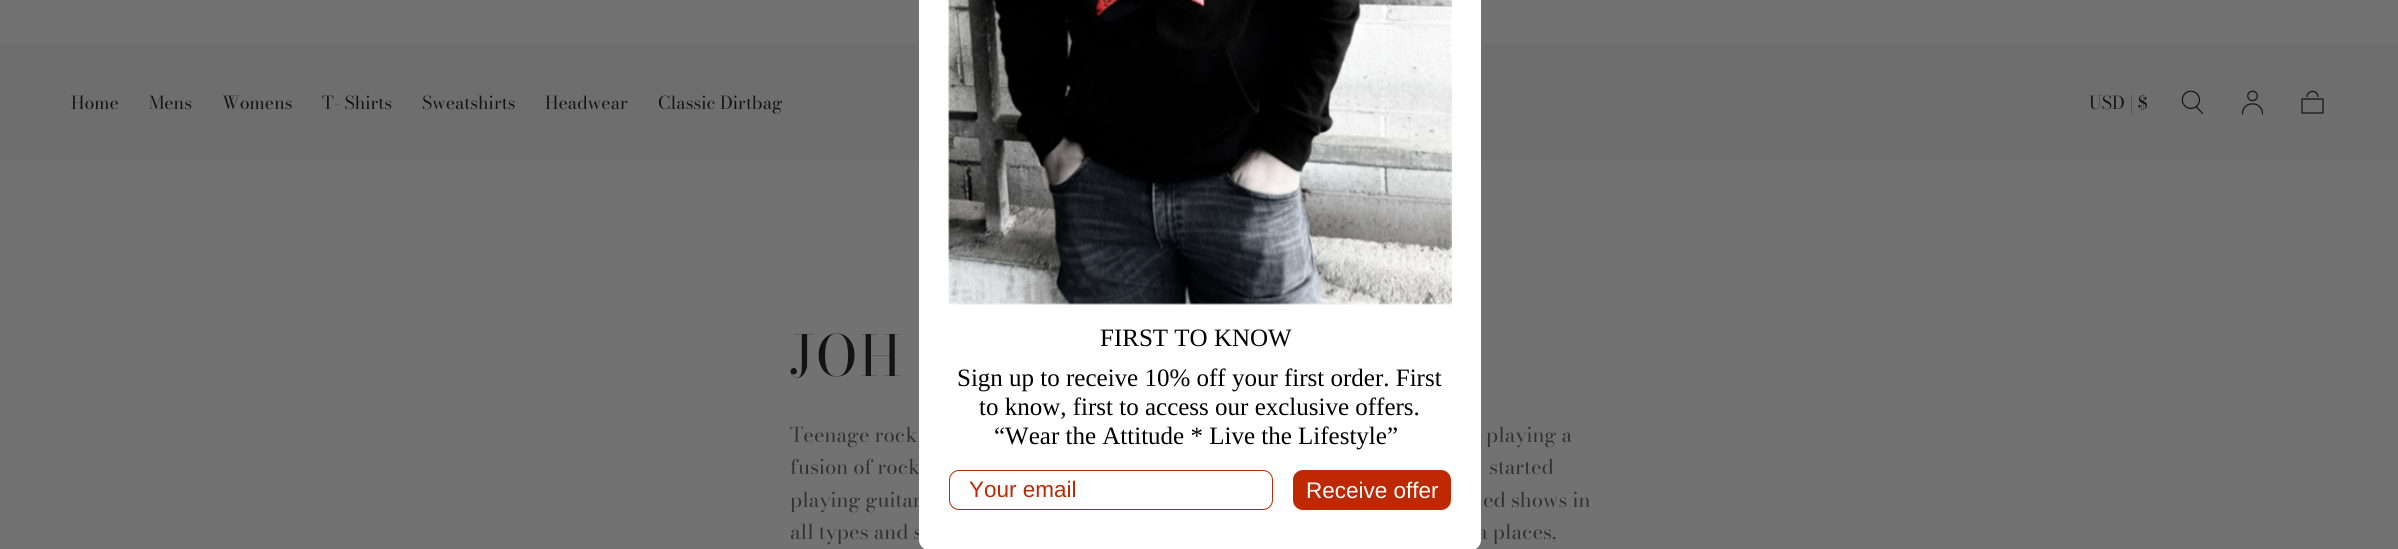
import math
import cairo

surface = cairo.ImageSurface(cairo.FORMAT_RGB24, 2398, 549)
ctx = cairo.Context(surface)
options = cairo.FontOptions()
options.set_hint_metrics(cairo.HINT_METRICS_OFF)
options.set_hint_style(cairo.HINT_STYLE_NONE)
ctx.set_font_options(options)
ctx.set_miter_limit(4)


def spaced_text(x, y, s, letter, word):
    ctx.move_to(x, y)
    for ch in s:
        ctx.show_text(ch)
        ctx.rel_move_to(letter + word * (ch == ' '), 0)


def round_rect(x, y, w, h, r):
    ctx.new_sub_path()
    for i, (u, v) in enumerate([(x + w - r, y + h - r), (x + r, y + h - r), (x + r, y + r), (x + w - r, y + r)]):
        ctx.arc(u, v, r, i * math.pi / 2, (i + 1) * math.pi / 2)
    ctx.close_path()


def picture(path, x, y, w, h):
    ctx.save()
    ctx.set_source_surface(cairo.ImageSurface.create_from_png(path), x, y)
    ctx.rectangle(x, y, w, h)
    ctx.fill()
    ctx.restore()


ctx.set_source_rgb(0.447, 0.447, 0.447)
ctx.paint()
ctx.set_source_rgb(0.435, 0.431, 0.431)
ctx.rectangle(0, 44, 2398, 117)
ctx.fill()
ctx.select_font_face("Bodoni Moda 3")
ctx.set_font_size(17.75)
ctx.set_source_rgb(0.075, 0.075, 0.075)
ctx.move_to(71, 109)
ctx.show_text("Home")
ctx.move_to(149, 109)
ctx.show_text("Mens")
ctx.move_to(222, 109)
ctx.show_text("Womens")
ctx.move_to(322, 109)
ctx.show_text("T- Shirts")
ctx.move_to(422, 109)
ctx.show_text("Sweatshirts")
ctx.move_to(545, 109)
ctx.show_text("Headwear")
ctx.move_to(658, 109)
ctx.show_text("Classic Dirtbag")
ctx.move_to(2089, 109)
ctx.show_text("USD | $")
picture("img1.png", 2181, 90, 22, 25)
picture("img2.png", 2241, 90, 23, 25)
ctx.new_path()
ctx.move_to(2323, 113)
ctx.line_to(2302, 113)
ctx.line_to(2302, 99)
ctx.line_to(2323, 99)
ctx.close_path()
ctx.move_to(2318, 97)
ctx.curve_to(2318, 89.5, 2307, 89.5, 2307, 97)
ctx.set_line_width(1.2)
ctx.stroke()
ctx.select_font_face("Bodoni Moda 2")
ctx.set_font_size(20.25)
ctx.set_source_rgb(0.196, 0.188, 0.188)
ctx.move_to(790, 474)
ctx.show_text("fusion of rock")
ctx.move_to(790, 507)
ctx.show_text("playing guitar")
ctx.move_to(790, 539)
ctx.show_text("all types and s")
ctx.move_to(1477, 539)
ctx.show_text("a places,")
ctx.set_source_rgb(1, 1, 1)
ctx.new_path()
ctx.move_to(919, 0)
ctx.line_to(1481, 0)
ctx.line_to(1481, 540)
ctx.curve_to(1481, 545.5, 1476.5, 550, 1471, 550)
ctx.line_to(929, 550)
ctx.curve_to(923.5, 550, 919, 545.5, 919, 540)
ctx.close_path()
ctx.fill()
picture("img3.png", 948, 0, 504, 305)
ctx.select_font_face("Liberation Serif")
ctx.set_font_size(25)
ctx.set_source_rgb(0, 0, 0)
ctx.move_to(1100, 346)
ctx.show_text("FIRST TO KNOW")
ctx.move_to(957, 386)
ctx.show_text("Sign up to receive 10% off your first order. First")
ctx.move_to(979, 415)
ctx.show_text("to know, first to access our exclusive offers.")
ctx.move_to(994, 444)
ctx.show_text("“Wear the Attitude * Live the Lifestyle”")
round_rect(949.5, 470.5, 323, 39, 9.5)
ctx.set_source_rgb(0.745, 0.161, 0.016)
ctx.set_line_width(1)
ctx.stroke()
ctx.select_font_face("Liberation Sans")
ctx.set_font_size(22.5)
ctx.move_to(969, 497)
ctx.show_text("Your email")
round_rect(1293, 470, 158, 40, 10)
ctx.fill()
ctx.set_source_rgb(1, 1, 1)
ctx.move_to(1306, 498)
ctx.show_text("Receive offer")
ctx.select_font_face("Bodoni Moda")
ctx.set_font_size(56)
ctx.set_source_rgb(0.075, 0.075, 0.075)
spaced_text(790, 376, "JOH", 2.5, 0)
ctx.select_font_face("Bodoni Moda 2")
ctx.set_font_size(20.25)
ctx.set_source_rgb(0.196, 0.188, 0.188)
ctx.move_to(790, 442)
ctx.show_text("Teenage rock")
ctx.move_to(1486, 442)
ctx.show_text("playing a")
ctx.move_to(1489, 474)
ctx.show_text("started")
ctx.move_to(1483, 507)
ctx.show_text("ed shows in")
surface.write_to_png("page.png")
